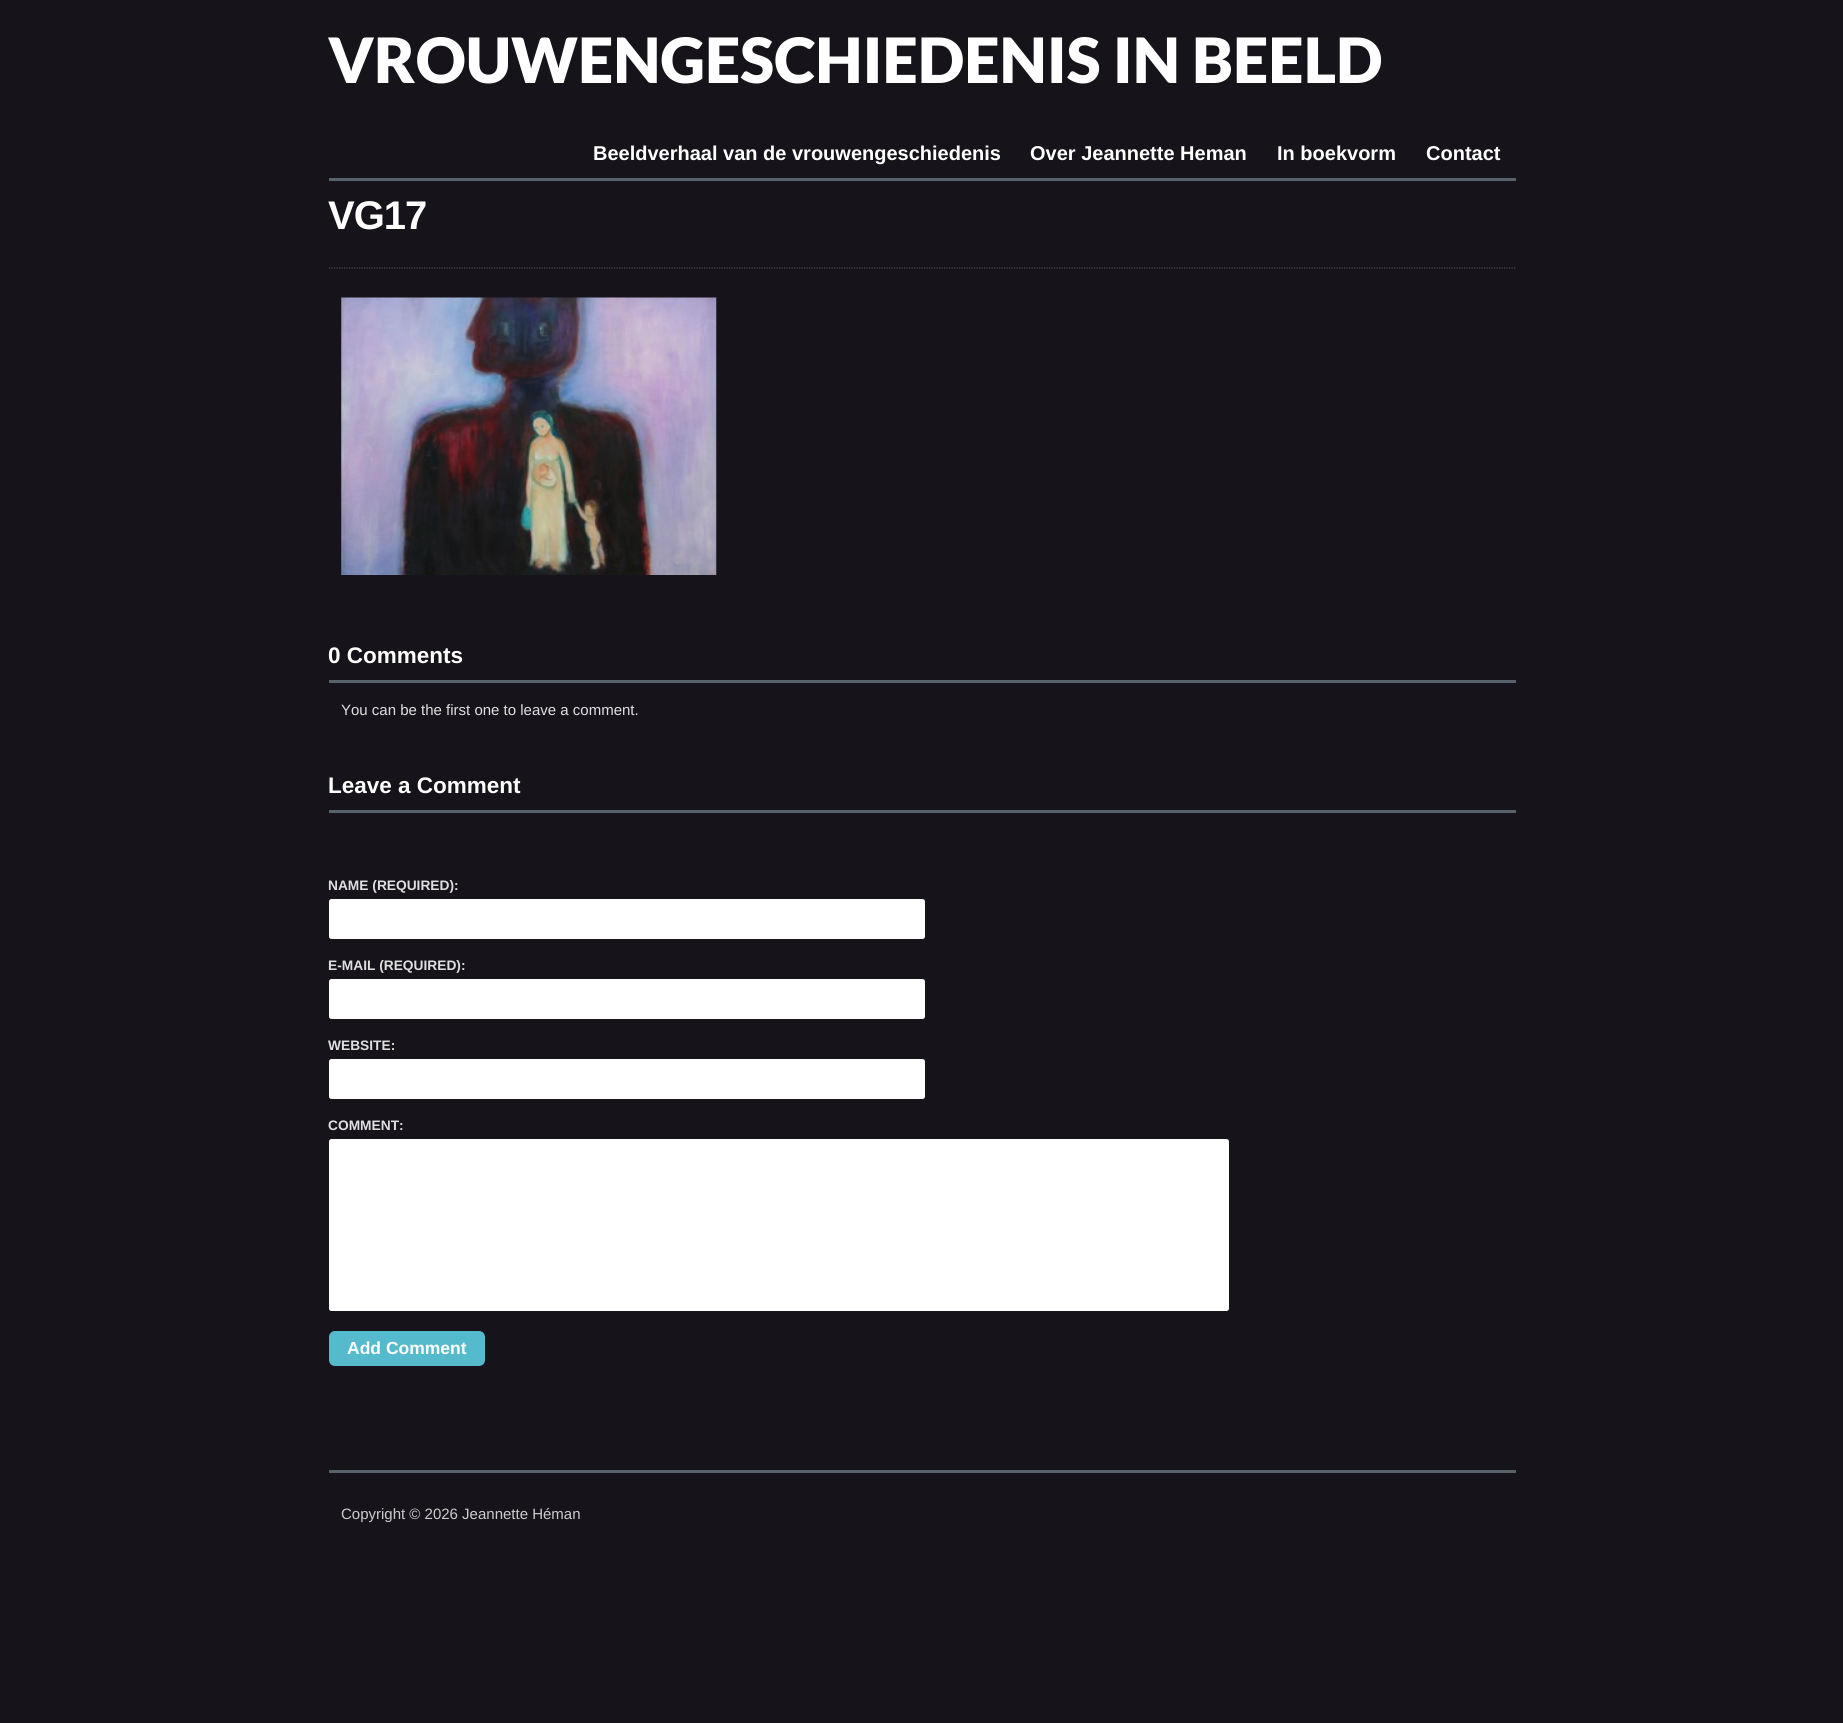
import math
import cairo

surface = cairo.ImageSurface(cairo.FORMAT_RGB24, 1843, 1723)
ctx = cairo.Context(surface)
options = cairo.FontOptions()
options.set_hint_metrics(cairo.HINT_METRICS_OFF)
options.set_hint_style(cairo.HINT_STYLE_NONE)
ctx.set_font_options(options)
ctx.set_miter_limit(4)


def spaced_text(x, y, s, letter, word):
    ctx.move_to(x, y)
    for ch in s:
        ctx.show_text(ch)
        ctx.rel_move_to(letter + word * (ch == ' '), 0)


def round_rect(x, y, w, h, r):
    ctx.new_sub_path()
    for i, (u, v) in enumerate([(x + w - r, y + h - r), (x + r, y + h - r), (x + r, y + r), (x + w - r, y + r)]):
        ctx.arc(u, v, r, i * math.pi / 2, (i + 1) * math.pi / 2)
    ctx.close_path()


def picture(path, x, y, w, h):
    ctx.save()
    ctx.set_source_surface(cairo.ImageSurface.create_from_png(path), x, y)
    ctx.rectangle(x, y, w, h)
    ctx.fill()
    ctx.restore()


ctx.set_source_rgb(0.086, 0.082, 0.102)
ctx.paint()
ctx.set_source_rgb(0.345, 0.384, 0.416)
ctx.rectangle(329, 178, 1187, 3)
ctx.fill()
ctx.select_font_face("Lato Black")
ctx.set_font_size(62.5)
ctx.set_source_rgb(1, 1, 1)
ctx.move_to(328, 83)
ctx.show_text("VROUWENGESCHIEDENIS IN BEELD")
ctx.select_font_face("Liberation Sans", cairo.FONT_SLANT_NORMAL, cairo.FONT_WEIGHT_BOLD)
ctx.set_font_size(20)
ctx.move_to(593, 160)
ctx.show_text("Beeldverhaal van de vrouwengeschiedenis")
ctx.move_to(1030, 160)
ctx.show_text("Over Jeannette Heman")
ctx.move_to(1277, 160)
ctx.show_text("In boekvorm")
ctx.move_to(1426, 160)
ctx.show_text("Contact")
ctx.set_font_size(40)
spaced_text(328, 229, "VG17", -1, 0)
ctx.new_path()
ctx.move_to(329, 268)
ctx.line_to(1516, 268)
ctx.set_source_rgb(0.278, 0.278, 0.278)
ctx.set_line_width(1.2)
ctx.set_dash([1.25, 1.25])
ctx.stroke()
picture("img1.png", 341, 297, 376, 278)
ctx.set_source_rgb(0.345, 0.384, 0.416)
ctx.rectangle(329, 680, 1187, 3)
ctx.fill()
ctx.set_font_size(22.5)
ctx.set_source_rgb(1, 1, 1)
ctx.move_to(328, 663)
ctx.show_text("0 Comments")
ctx.select_font_face("Liberation Sans")
ctx.set_font_size(15)
ctx.set_source_rgb(0.875, 0.875, 0.878)
ctx.move_to(341, 715)
ctx.show_text("You can be the first one to leave a comment.")
ctx.set_source_rgb(0.345, 0.384, 0.416)
ctx.rectangle(329, 810, 1187, 3)
ctx.fill()
ctx.select_font_face("Liberation Sans", cairo.FONT_SLANT_NORMAL, cairo.FONT_WEIGHT_BOLD)
ctx.set_font_size(22.5)
ctx.set_source_rgb(1, 1, 1)
ctx.move_to(328, 793)
ctx.show_text("Leave a Comment")
ctx.set_font_size(13.75)
ctx.set_source_rgb(0.875, 0.875, 0.878)
ctx.move_to(328, 890)
ctx.show_text("NAME (REQUIRED):")
ctx.set_source_rgb(1, 1, 1)
round_rect(329, 899, 596, 40, 2.5)
ctx.fill()
ctx.set_source_rgb(0.875, 0.875, 0.878)
ctx.move_to(328, 970)
ctx.show_text("E-MAIL (REQUIRED):")
ctx.set_source_rgb(1, 1, 1)
round_rect(329, 979, 596, 40, 2.5)
ctx.fill()
ctx.set_source_rgb(0.875, 0.875, 0.878)
ctx.move_to(328, 1050)
ctx.show_text("WEBSITE:")
ctx.set_source_rgb(1, 1, 1)
round_rect(329, 1059, 596, 40, 2.5)
ctx.fill()
ctx.set_source_rgb(0.875, 0.875, 0.878)
ctx.move_to(328, 1130)
ctx.show_text("COMMENT:")
ctx.set_source_rgb(1, 1, 1)
round_rect(329, 1139, 900, 172, 2.5)
ctx.fill()
ctx.set_source_rgb(0.333, 0.733, 0.8)
round_rect(329, 1331, 156, 35, 6)
ctx.fill()
ctx.set_font_size(17.5)
ctx.set_source_rgb(1, 1, 1)
ctx.move_to(347, 1354)
ctx.show_text("Add Comment")
ctx.set_source_rgb(0.345, 0.384, 0.416)
ctx.rectangle(329, 1470, 1187, 3)
ctx.fill()
ctx.select_font_face("Liberation Sans")
ctx.set_font_size(15)
ctx.set_source_rgb(0.8, 0.8, 0.8)
ctx.move_to(341, 1519)
ctx.show_text("Copyright © 2026 Jeannette Héman")
surface.write_to_png("page.png")
